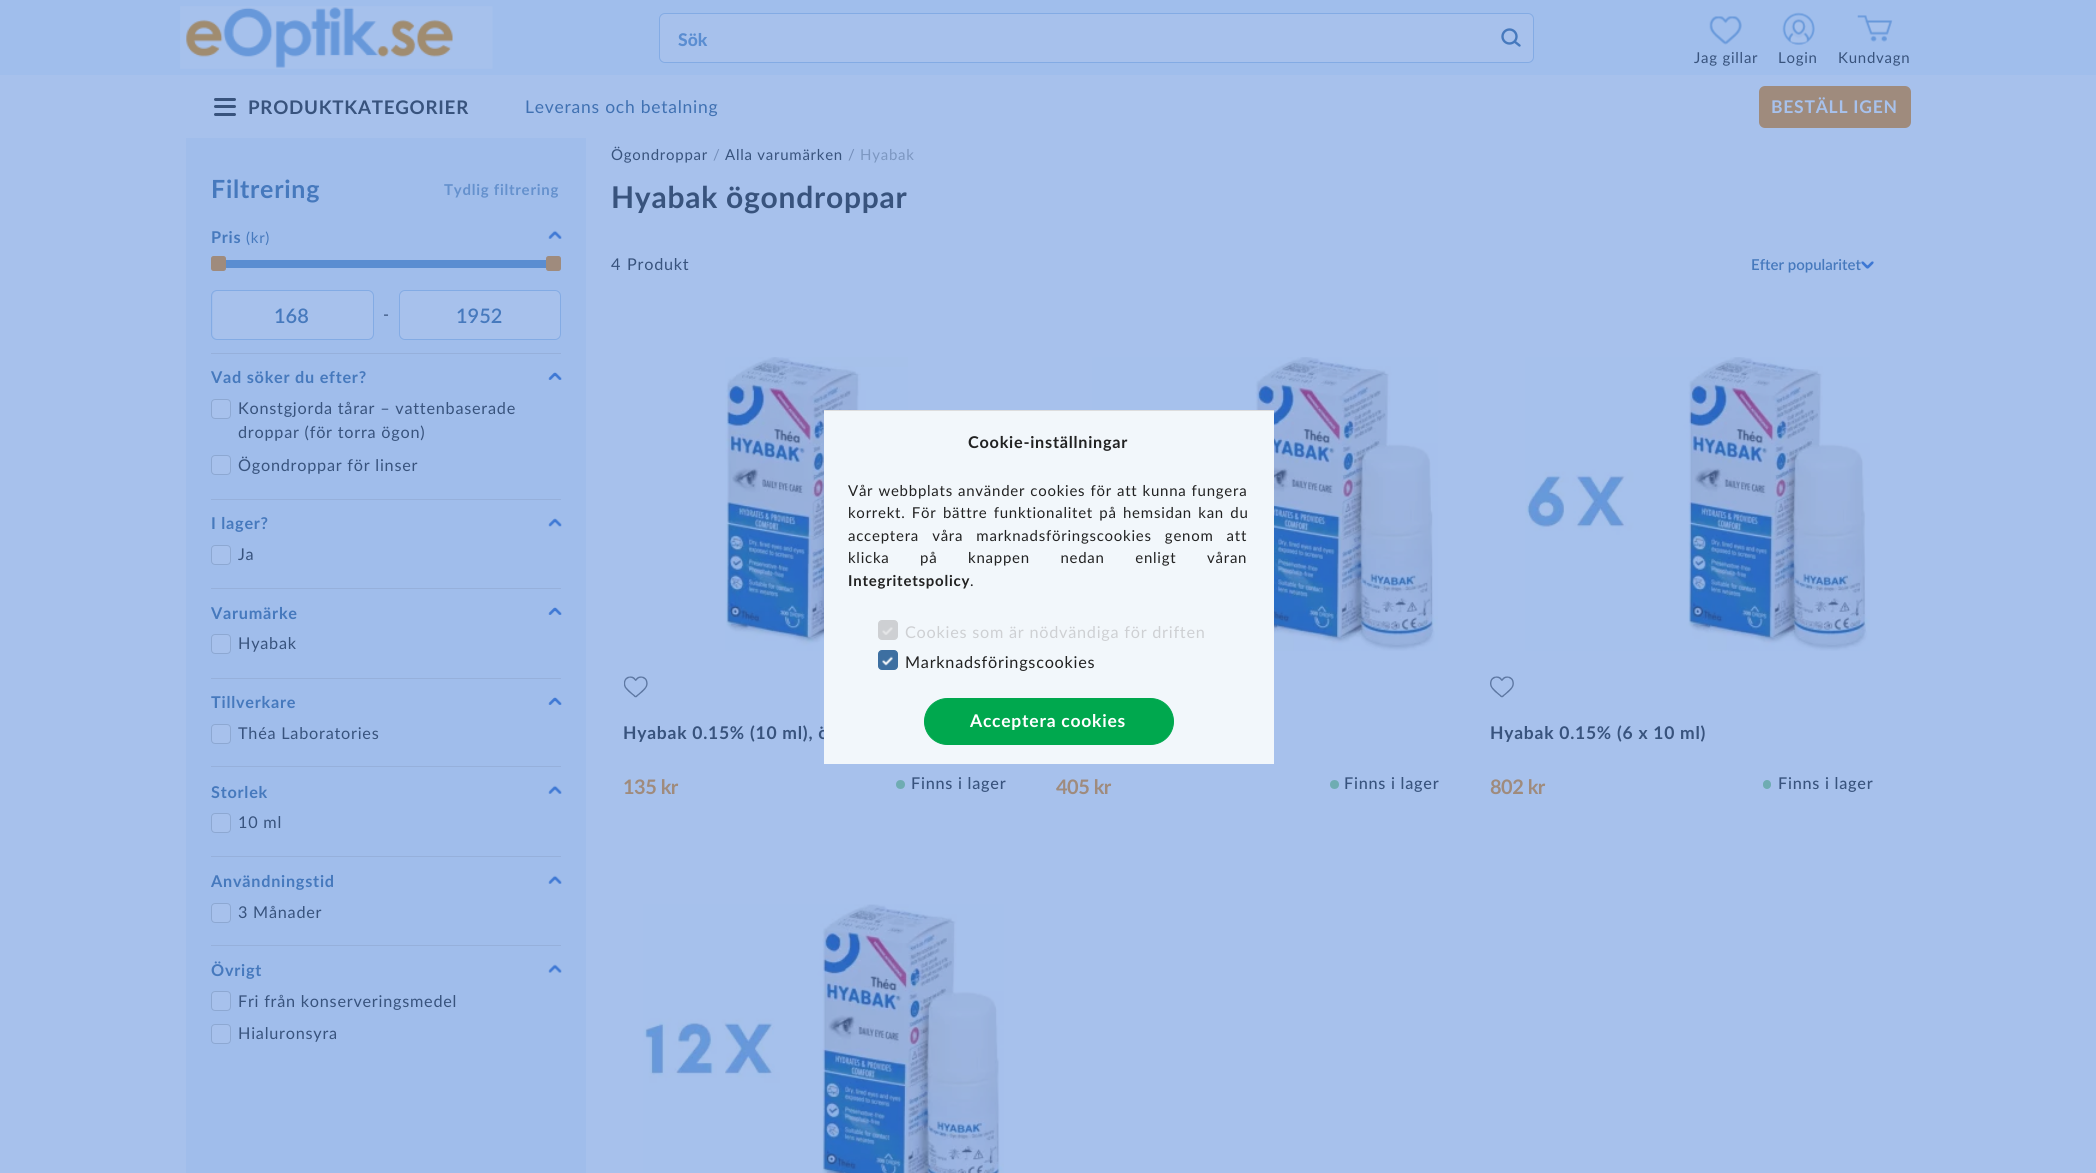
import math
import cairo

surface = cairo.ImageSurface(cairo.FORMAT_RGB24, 2096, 1173)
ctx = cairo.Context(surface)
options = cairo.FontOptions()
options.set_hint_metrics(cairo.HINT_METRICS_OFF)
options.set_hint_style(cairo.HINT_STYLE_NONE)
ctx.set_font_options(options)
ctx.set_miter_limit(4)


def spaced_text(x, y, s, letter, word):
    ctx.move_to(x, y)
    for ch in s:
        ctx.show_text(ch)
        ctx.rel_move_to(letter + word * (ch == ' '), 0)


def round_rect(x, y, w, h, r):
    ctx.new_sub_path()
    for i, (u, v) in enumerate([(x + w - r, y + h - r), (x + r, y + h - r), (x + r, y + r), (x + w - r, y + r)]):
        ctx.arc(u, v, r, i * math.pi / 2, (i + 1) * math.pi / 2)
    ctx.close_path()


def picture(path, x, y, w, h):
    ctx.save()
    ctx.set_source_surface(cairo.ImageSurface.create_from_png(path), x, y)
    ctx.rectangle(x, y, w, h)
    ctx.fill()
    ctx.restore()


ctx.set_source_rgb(0.655, 0.757, 0.925)
ctx.paint()
ctx.set_source_rgb(0.627, 0.745, 0.922)
ctx.rectangle(0, 0, 2096, 75)
ctx.fill()
picture("img1.png", 180, 6, 313, 63)
ctx.set_source_rgb(0.655, 0.757, 0.925)
round_rect(659.5, 13.5, 874, 49, 5.5)
ctx.fill_preserve()
ctx.set_source_rgb(0.514, 0.671, 0.894)
ctx.set_line_width(1)
ctx.stroke()
ctx.select_font_face("Lato Black")
ctx.set_font_size(17.5)
ctx.set_source_rgb(0.353, 0.553, 0.82)
ctx.move_to(678, 46)
ctx.show_text("Sök")
ctx.new_path()
ctx.move_to(1514.5, 41.5)
ctx.line_to(1519.5, 45.5)
ctx.set_source_rgb(0.275, 0.475, 0.741)
ctx.set_line_width(2.4)
ctx.set_line_cap(cairo.LINE_CAP_ROUND)
ctx.set_line_join(cairo.LINE_JOIN_ROUND)
ctx.stroke()
ctx.set_source_rgb(0.655, 0.757, 0.925)
ctx.arc(1509.5, 36.5, 7, 0, 2 * math.pi)
ctx.fill_preserve()
ctx.set_source_rgb(0.275, 0.475, 0.741)
ctx.set_line_cap(cairo.LINE_CAP_BUTT)
ctx.set_line_join(cairo.LINE_JOIN_MITER)
ctx.stroke()
picture("img2.png", 1709, 16, 33, 29)
ctx.select_font_face("Lato")
ctx.set_font_size(15)
ctx.set_source_rgb(0.22, 0.325, 0.49)
spaced_text(1694, 63, "Jag gillar", 0.75, 0)
picture("img3.png", 1782, 12, 33, 33)
spaced_text(1778, 63, "Login", 0.75, 0)
picture("img4.png", 1857, 15, 36, 27)
spaced_text(1838, 63, "Kundvagn", 0.75, 0)
round_rect(214, 98, 22, 3, 1.5)
ctx.fill()
round_rect(214, 105, 22, 3, 1.5)
ctx.fill()
round_rect(214, 113, 22, 3, 1.5)
ctx.fill()
ctx.select_font_face("Lato", cairo.FONT_SLANT_NORMAL, cairo.FONT_WEIGHT_BOLD)
ctx.set_font_size(18.75)
spaced_text(248, 114, "PRODUKTKATEGORIER", 0.75, 0)
ctx.select_font_face("Lato")
ctx.set_font_size(17.5)
ctx.set_source_rgb(0.251, 0.443, 0.698)
spaced_text(525, 113, "Leverans och betalning", 0.75, 0)
ctx.set_source_rgb(0.624, 0.545, 0.49)
round_rect(1759, 86, 152, 42, 6)
ctx.fill()
ctx.select_font_face("Lato", cairo.FONT_SLANT_NORMAL, cairo.FONT_WEIGHT_BOLD)
ctx.set_source_rgb(0.655, 0.757, 0.925)
spaced_text(1771, 113, "BESTÄLL IGEN", 0.75, 0)
ctx.set_source_rgb(0.627, 0.741, 0.918)
ctx.rectangle(186, 138, 400, 1035)
ctx.fill()
ctx.set_font_size(25)
ctx.set_source_rgb(0.275, 0.475, 0.741)
spaced_text(211, 198, "Filtrering", 0.75, 0)
ctx.set_font_size(15)
ctx.set_source_rgb(0.396, 0.569, 0.804)
spaced_text(444, 195, "Tydlig filtrering", 0.75, 0)
ctx.set_font_size(16.25)
ctx.set_source_rgb(0.275, 0.475, 0.741)
spaced_text(211, 243, "Pris", 0.75, 0)
ctx.select_font_face("Lato")
ctx.set_font_size(15)
spaced_text(246, 243, "(kr)", 0.75, 0)
picture("img5.png", 548, 230, 14, 9)
ctx.set_source_rgb(0.353, 0.553, 0.82)
ctx.rectangle(219, 260, 335, 8)
ctx.fill()
ctx.set_source_rgb(0.624, 0.545, 0.49)
round_rect(211, 256, 15, 15, 2.5)
ctx.fill()
round_rect(546, 256, 15, 15, 2.5)
ctx.fill()
ctx.set_source_rgb(0.655, 0.757, 0.925)
round_rect(213, 291, 160, 48, 5)
ctx.fill()
round_rect(211.5, 290.5, 162, 49, 5.5)
ctx.set_source_rgb(0.514, 0.671, 0.894)
ctx.set_line_width(1)
ctx.stroke()
ctx.select_font_face("Lato SemiBold")
ctx.set_font_size(20)
ctx.set_source_rgb(0.275, 0.475, 0.741)
ctx.move_to(274, 323)
ctx.show_text("168")
ctx.select_font_face("Lato")
ctx.set_font_size(16.25)
ctx.set_source_rgb(0.22, 0.325, 0.49)
spaced_text(383, 320, "-", 0.75, 0)
ctx.set_source_rgb(0.655, 0.757, 0.925)
round_rect(399.5, 290.5, 161, 49, 5.5)
ctx.fill_preserve()
ctx.set_source_rgb(0.514, 0.671, 0.894)
ctx.stroke()
ctx.select_font_face("Lato SemiBold")
ctx.set_font_size(20)
ctx.set_source_rgb(0.275, 0.475, 0.741)
ctx.move_to(456, 323)
ctx.show_text("1952")
ctx.set_source_rgb(0.588, 0.69, 0.859)
ctx.rectangle(211, 353, 350, 1)
ctx.fill()
ctx.select_font_face("Lato", cairo.FONT_SLANT_NORMAL, cairo.FONT_WEIGHT_BOLD)
ctx.set_font_size(16.25)
ctx.set_source_rgb(0.275, 0.475, 0.741)
spaced_text(211, 383, "Vad söker du efter?", 0.75, 0)
picture("img6.png", 548, 372, 14, 8)
ctx.set_source_rgb(0.655, 0.757, 0.925)
round_rect(211.5, 399.5, 19, 19, 3.5)
ctx.fill_preserve()
ctx.set_source_rgb(0.553, 0.659, 0.824)
ctx.stroke()
ctx.select_font_face("Lato")
ctx.set_source_rgb(0.22, 0.325, 0.49)
spaced_text(238, 414, "Konstgjorda tårar – vattenbaserade", 0.75, 0)
spaced_text(238, 438, "droppar (för torra ögon)", 0.75, 0)
ctx.set_source_rgb(0.655, 0.757, 0.925)
round_rect(211.5, 455.5, 19, 19, 3.5)
ctx.fill_preserve()
ctx.set_source_rgb(0.553, 0.659, 0.824)
ctx.stroke()
ctx.set_source_rgb(0.22, 0.325, 0.49)
spaced_text(238, 471, "Ögondroppar för linser", 0.75, 0)
ctx.set_source_rgb(0.588, 0.69, 0.859)
ctx.rectangle(211, 499, 350, 1)
ctx.fill()
ctx.select_font_face("Lato", cairo.FONT_SLANT_NORMAL, cairo.FONT_WEIGHT_BOLD)
ctx.set_source_rgb(0.275, 0.475, 0.741)
spaced_text(211, 529, "I lager?", 0.75, 0)
picture("img7.png", 548, 518, 14, 9)
ctx.set_source_rgb(0.655, 0.757, 0.925)
round_rect(211.5, 545.5, 19, 19, 3.5)
ctx.fill_preserve()
ctx.set_source_rgb(0.553, 0.659, 0.824)
ctx.stroke()
ctx.select_font_face("Lato")
ctx.set_source_rgb(0.22, 0.325, 0.49)
spaced_text(238, 560, "Ja", 0.75, 0)
ctx.set_source_rgb(0.588, 0.69, 0.859)
ctx.rectangle(211, 588, 350, 1)
ctx.fill()
ctx.select_font_face("Lato", cairo.FONT_SLANT_NORMAL, cairo.FONT_WEIGHT_BOLD)
ctx.set_source_rgb(0.275, 0.475, 0.741)
spaced_text(211, 619, "Varumärke", 0.75, 0)
picture("img6.png", 548, 607, 14, 8)
ctx.set_source_rgb(0.655, 0.757, 0.925)
round_rect(211.5, 634.5, 19, 19, 3.5)
ctx.fill_preserve()
ctx.set_source_rgb(0.553, 0.659, 0.824)
ctx.stroke()
ctx.select_font_face("Lato")
ctx.set_source_rgb(0.22, 0.325, 0.49)
spaced_text(238, 649, "Hyabak", 0.75, 0)
ctx.set_source_rgb(0.588, 0.69, 0.859)
ctx.rectangle(211, 678, 350, 1)
ctx.fill()
ctx.select_font_face("Lato", cairo.FONT_SLANT_NORMAL, cairo.FONT_WEIGHT_BOLD)
ctx.set_source_rgb(0.275, 0.475, 0.741)
spaced_text(211, 708, "Tillverkare", 0.75, 0)
picture("img6.png", 548, 697, 14, 8)
ctx.set_source_rgb(0.655, 0.757, 0.925)
round_rect(211.5, 724.5, 19, 19, 3.5)
ctx.fill_preserve()
ctx.set_source_rgb(0.553, 0.659, 0.824)
ctx.stroke()
ctx.select_font_face("Lato")
ctx.set_source_rgb(0.22, 0.325, 0.49)
spaced_text(238, 739, "Théa Laboratories", 0.75, 0)
ctx.set_source_rgb(0.588, 0.69, 0.859)
ctx.rectangle(211, 766, 350, 1)
ctx.fill()
ctx.select_font_face("Lato", cairo.FONT_SLANT_NORMAL, cairo.FONT_WEIGHT_BOLD)
ctx.set_source_rgb(0.275, 0.475, 0.741)
spaced_text(211, 798, "Storlek", 0.75, 0)
picture("img5.png", 548, 785, 14, 9)
ctx.set_source_rgb(0.655, 0.757, 0.925)
round_rect(211.5, 813.5, 19, 19, 3.5)
ctx.fill_preserve()
ctx.set_source_rgb(0.553, 0.659, 0.824)
ctx.stroke()
ctx.select_font_face("Lato")
ctx.set_source_rgb(0.22, 0.325, 0.49)
spaced_text(238, 828, "10 ml", 0.75, 0)
ctx.set_source_rgb(0.588, 0.69, 0.859)
ctx.rectangle(211, 856, 350, 1)
ctx.fill()
ctx.select_font_face("Lato", cairo.FONT_SLANT_NORMAL, cairo.FONT_WEIGHT_BOLD)
ctx.set_source_rgb(0.275, 0.475, 0.741)
spaced_text(211, 887, "Användningstid", 0.75, 0)
picture("img5.png", 548, 875, 14, 9)
ctx.set_source_rgb(0.655, 0.757, 0.925)
round_rect(211.5, 903.5, 19, 19, 3.5)
ctx.fill_preserve()
ctx.set_source_rgb(0.553, 0.659, 0.824)
ctx.stroke()
ctx.select_font_face("Lato")
ctx.set_source_rgb(0.22, 0.325, 0.49)
spaced_text(238, 918, "3 Månader", 0.75, 0)
ctx.set_source_rgb(0.588, 0.69, 0.859)
ctx.rectangle(211, 945, 350, 1)
ctx.fill()
ctx.select_font_face("Lato", cairo.FONT_SLANT_NORMAL, cairo.FONT_WEIGHT_BOLD)
ctx.set_source_rgb(0.275, 0.475, 0.741)
spaced_text(211, 976, "Övrigt", 0.75, 0)
picture("img8.png", 548, 964, 14, 9)
ctx.set_source_rgb(0.655, 0.757, 0.925)
round_rect(211.5, 991.5, 19, 19, 3.5)
ctx.fill_preserve()
ctx.set_source_rgb(0.553, 0.659, 0.824)
ctx.stroke()
ctx.select_font_face("Lato")
ctx.set_source_rgb(0.22, 0.325, 0.49)
spaced_text(238, 1007, "Fri från konserveringsmedel", 0.75, 0)
ctx.set_source_rgb(0.655, 0.757, 0.925)
round_rect(211.5, 1024.5, 19, 19, 3.5)
ctx.fill_preserve()
ctx.set_source_rgb(0.553, 0.659, 0.824)
ctx.stroke()
ctx.set_source_rgb(0.22, 0.325, 0.49)
spaced_text(238, 1039, "Hialuronsyra", 0.75, 0)
ctx.set_font_size(15)
spaced_text(611, 160, "Ögondroppar", 0.75, 0)
ctx.set_source_rgb(0.455, 0.557, 0.725)
spaced_text(713, 160, "/", 0.75, 0)
ctx.set_source_rgb(0.22, 0.325, 0.49)
spaced_text(725, 160, "Alla varumärken", 0.75, 0)
ctx.set_source_rgb(0.455, 0.557, 0.725)
spaced_text(848, 160, "/", 0.75, 0)
ctx.set_source_rgb(0.486, 0.592, 0.757)
spaced_text(860, 160, "Hyabak", 0.75, 0)
ctx.select_font_face("Lato", cairo.FONT_SLANT_NORMAL, cairo.FONT_WEIGHT_BOLD)
ctx.set_font_size(30)
ctx.set_source_rgb(0.22, 0.325, 0.49)
spaced_text(611, 208, "Hyabak ögondroppar", 0.75, 0)
ctx.select_font_face("Lato")
ctx.set_font_size(16.25)
spaced_text(611, 270, "4", 0.75, 0)
spaced_text(627, 270, "Produkt", 0.75, 0)
ctx.select_font_face("Lato SemiBold")
ctx.set_font_size(15)
ctx.set_source_rgb(0.275, 0.475, 0.741)
ctx.move_to(1751, 270)
ctx.show_text("Efter popularitet")
picture("img9.png", 1861, 261, 13, 8)
picture("img10.png", 725, 357, 183, 294)
picture("img11.png", 624, 676, 24, 22)
ctx.select_font_face("Lato", cairo.FONT_SLANT_NORMAL, cairo.FONT_WEIGHT_BOLD)
ctx.set_font_size(17.5)
ctx.set_source_rgb(0.22, 0.325, 0.49)
spaced_text(623, 739, "Hyabak 0.15% (10 ml), ö", 0.75, 0)
ctx.set_font_size(20)
ctx.set_source_rgb(0.624, 0.545, 0.49)
spaced_text(623, 794, "135 kr", -0.5, 0)
ctx.set_source_rgb(0.435, 0.675, 0.698)
ctx.new_path()
ctx.arc(900.5, 784.5, 4.5, 0, 2 * math.pi)
ctx.fill()
ctx.select_font_face("Lato Medium")
ctx.set_font_size(16.25)
ctx.set_source_rgb(0.22, 0.325, 0.49)
spaced_text(911, 789, "Finns i lager", 0.75, 0)
picture("img12.png", 1092, 357, 346, 294)
ctx.select_font_face("Lato", cairo.FONT_SLANT_NORMAL, cairo.FONT_WEIGHT_BOLD)
ctx.set_font_size(20)
ctx.set_source_rgb(0.624, 0.545, 0.49)
spaced_text(1056, 794, "405 kr", -0.5, 0)
ctx.set_source_rgb(0.435, 0.675, 0.698)
ctx.new_path()
ctx.arc(1334.5, 784.5, 4.5, 0, 2 * math.pi)
ctx.fill()
ctx.select_font_face("Lato Medium")
ctx.set_font_size(16.25)
ctx.set_source_rgb(0.22, 0.325, 0.49)
spaced_text(1344, 789, "Finns i lager", 0.75, 0)
picture("img13.png", 1525, 357, 345, 294)
picture("img14.png", 1490, 676, 24, 22)
ctx.select_font_face("Lato", cairo.FONT_SLANT_NORMAL, cairo.FONT_WEIGHT_BOLD)
ctx.set_font_size(17.5)
spaced_text(1490, 739, "Hyabak 0.15% (6 x 10 ml)", 0.75, 0)
ctx.set_font_size(20)
ctx.set_source_rgb(0.624, 0.545, 0.49)
spaced_text(1490, 794, "802 kr", -0.5, 0)
ctx.set_source_rgb(0.435, 0.675, 0.698)
round_rect(1763, 780, 8, 9, 4)
ctx.fill()
ctx.select_font_face("Lato Medium")
ctx.set_font_size(16.25)
ctx.set_source_rgb(0.22, 0.325, 0.49)
spaced_text(1778, 789, "Finns i lager", 0.75, 0)
picture("img15.png", 643, 904, 361, 269)
ctx.set_source_rgb(0.949, 0.965, 0.984)
ctx.rectangle(824, 411, 450, 353)
ctx.fill()
ctx.set_source_rgb(0.867, 0.867, 0.867)
ctx.rectangle(824, 410, 450, 1)
ctx.fill()
ctx.select_font_face("Lato", cairo.FONT_SLANT_NORMAL, cairo.FONT_WEIGHT_BOLD)
ctx.set_source_rgb(0.133, 0.133, 0.133)
spaced_text(968, 448, "Cookie-inställningar", 0.75, 0)
ctx.select_font_face("Lato")
ctx.set_font_size(15)
spaced_text(848, 496, "Vår webbplats använder cookies för att kunna fungera", 0.75, 0.5)
spaced_text(848, 518, "korrekt. För bättre funktionalitet på hemsidan kan du", 0.75, 1.75)
spaced_text(848, 541, "acceptera våra marknadsföringscookies genom att", 0.75, 8.5)
spaced_text(848, 563, "klicka på knappen nedan enligt våran", 0.75, 26)
ctx.select_font_face("Lato", cairo.FONT_SLANT_NORMAL, cairo.FONT_WEIGHT_BOLD)
spaced_text(848, 586, "Integritetspolicy", 0.75, 0)
ctx.select_font_face("Lato")
spaced_text(970, 586, ".", 0.75, 0)
ctx.set_source_rgb(0.808, 0.816, 0.827)
round_rect(878.5, 620.5, 19, 19, 3.5)
ctx.fill_preserve()
ctx.stroke()
picture("img16.png", 882, 627, 11, 8)
ctx.set_font_size(16.25)
spaced_text(905, 638, "Cookies som är nödvändiga för driften", 0.75, 0)
ctx.set_source_rgb(0.239, 0.435, 0.631)
round_rect(878.5, 650.5, 19, 19, 3.5)
ctx.fill_preserve()
ctx.stroke()
picture("img17.png", 882, 656, 11, 10)
ctx.set_source_rgb(0.133, 0.133, 0.133)
spaced_text(905, 668, "Marknadsföringscookies", 0.75, 0)
ctx.set_source_rgb(0, 0.659, 0.306)
round_rect(924.5, 698.5, 249, 46, 23)
ctx.fill_preserve()
ctx.stroke()
ctx.select_font_face("Lato", cairo.FONT_SLANT_NORMAL, cairo.FONT_WEIGHT_BOLD)
ctx.set_font_size(17.5)
ctx.set_source_rgb(1, 1, 1)
spaced_text(970, 727, "Acceptera cookies", 0.75, 0)
surface.write_to_png("page.png")
